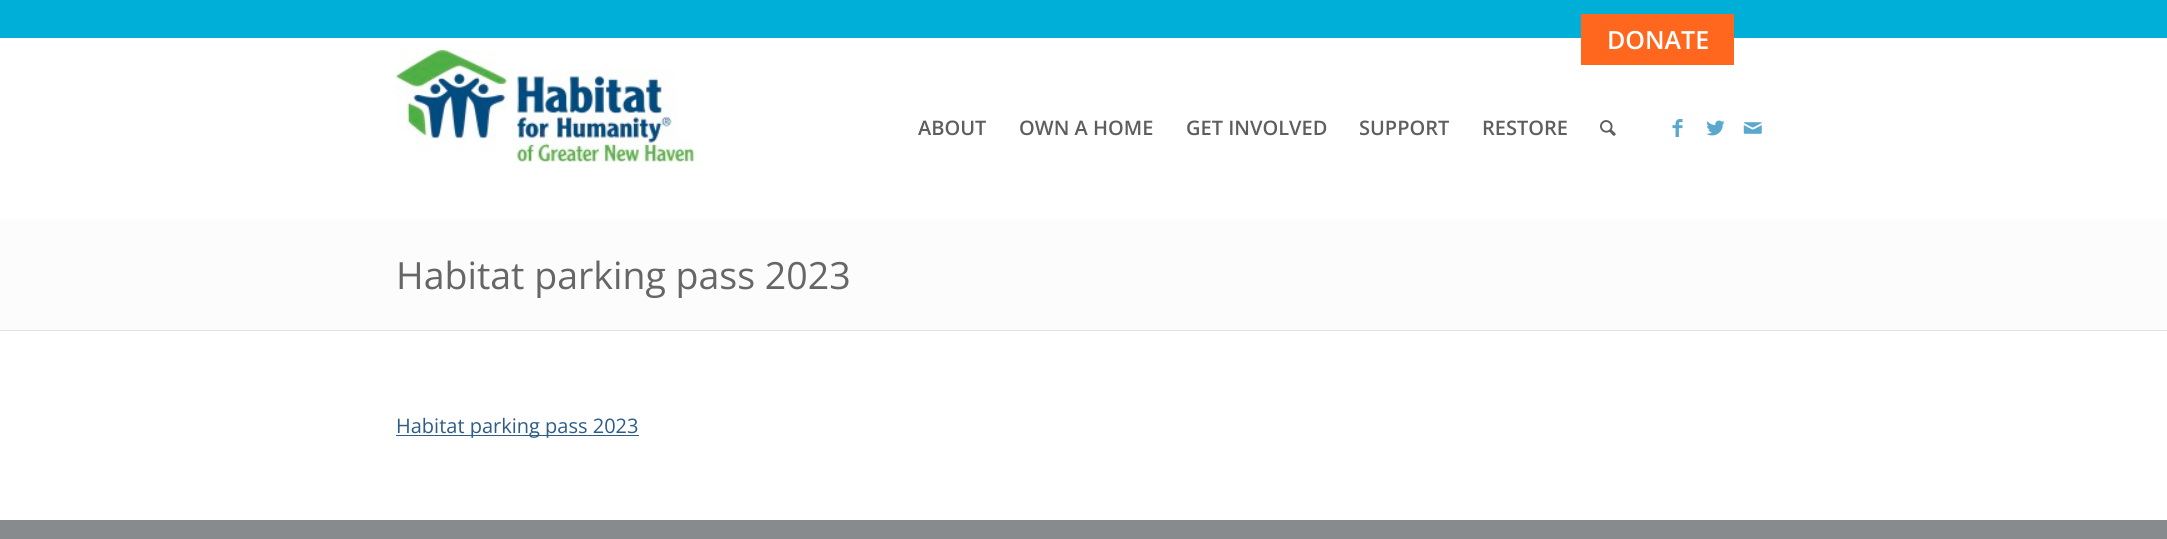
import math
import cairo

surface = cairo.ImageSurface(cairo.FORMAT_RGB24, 2167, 539)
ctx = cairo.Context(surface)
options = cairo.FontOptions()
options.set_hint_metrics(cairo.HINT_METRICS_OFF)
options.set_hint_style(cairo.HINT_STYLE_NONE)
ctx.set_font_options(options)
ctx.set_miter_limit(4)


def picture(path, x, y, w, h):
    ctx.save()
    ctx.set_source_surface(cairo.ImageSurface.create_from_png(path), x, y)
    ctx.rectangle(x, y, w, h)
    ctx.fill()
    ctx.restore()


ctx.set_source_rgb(1, 1, 1)
ctx.paint()
ctx.set_source_rgb(0, 0.686, 0.843)
ctx.rectangle(0, 0, 2167, 38)
ctx.fill()
ctx.set_source_rgb(1, 0.404, 0.122)
ctx.rectangle(1581, 14, 153, 51)
ctx.fill()
ctx.select_font_face("Open Sans SemiBold")
ctx.set_font_size(25)
ctx.set_source_rgb(1, 1, 1)
ctx.move_to(1607, 49)
ctx.show_text("DONATE")
picture("img1.png", 396, 50, 298, 112)
ctx.set_font_size(20)
ctx.set_source_rgb(0.369, 0.369, 0.369)
ctx.move_to(918, 135)
ctx.show_text("ABOUT")
ctx.move_to(1019, 135)
ctx.show_text("OWN A HOME")
ctx.move_to(1186, 135)
ctx.show_text("GET INVOLVED")
ctx.move_to(1359, 135)
ctx.show_text("SUPPORT")
ctx.move_to(1482, 135)
ctx.show_text("RESTORE")
picture("img2.png", 1600, 120, 16, 16)
picture("img3.png", 1672, 119, 11, 18)
picture("img4.png", 1706, 120, 19, 16)
picture("img5.png", 1743, 122, 19, 12)
ctx.set_source_rgb(0.988, 0.988, 0.988)
ctx.rectangle(0, 219, 2167, 111)
ctx.fill()
ctx.select_font_face("Open Sans")
ctx.set_font_size(37.5)
ctx.set_source_rgb(0.4, 0.4, 0.4)
ctx.move_to(396, 289)
ctx.show_text("Habitat parking pass 2023")
ctx.set_source_rgb(0.882, 0.882, 0.882)
ctx.rectangle(0, 330, 2167, 1)
ctx.fill()
ctx.set_source_rgb(0.176, 0.361, 0.533)
ctx.rectangle(396, 435, 243, 1)
ctx.fill()
ctx.set_font_size(20)
ctx.move_to(396, 433)
ctx.show_text("Habitat parking pass 2023")
ctx.set_source_rgb(0.533, 0.545, 0.553)
ctx.rectangle(0, 520, 2167, 19)
ctx.fill()
surface.write_to_png("page.png")
